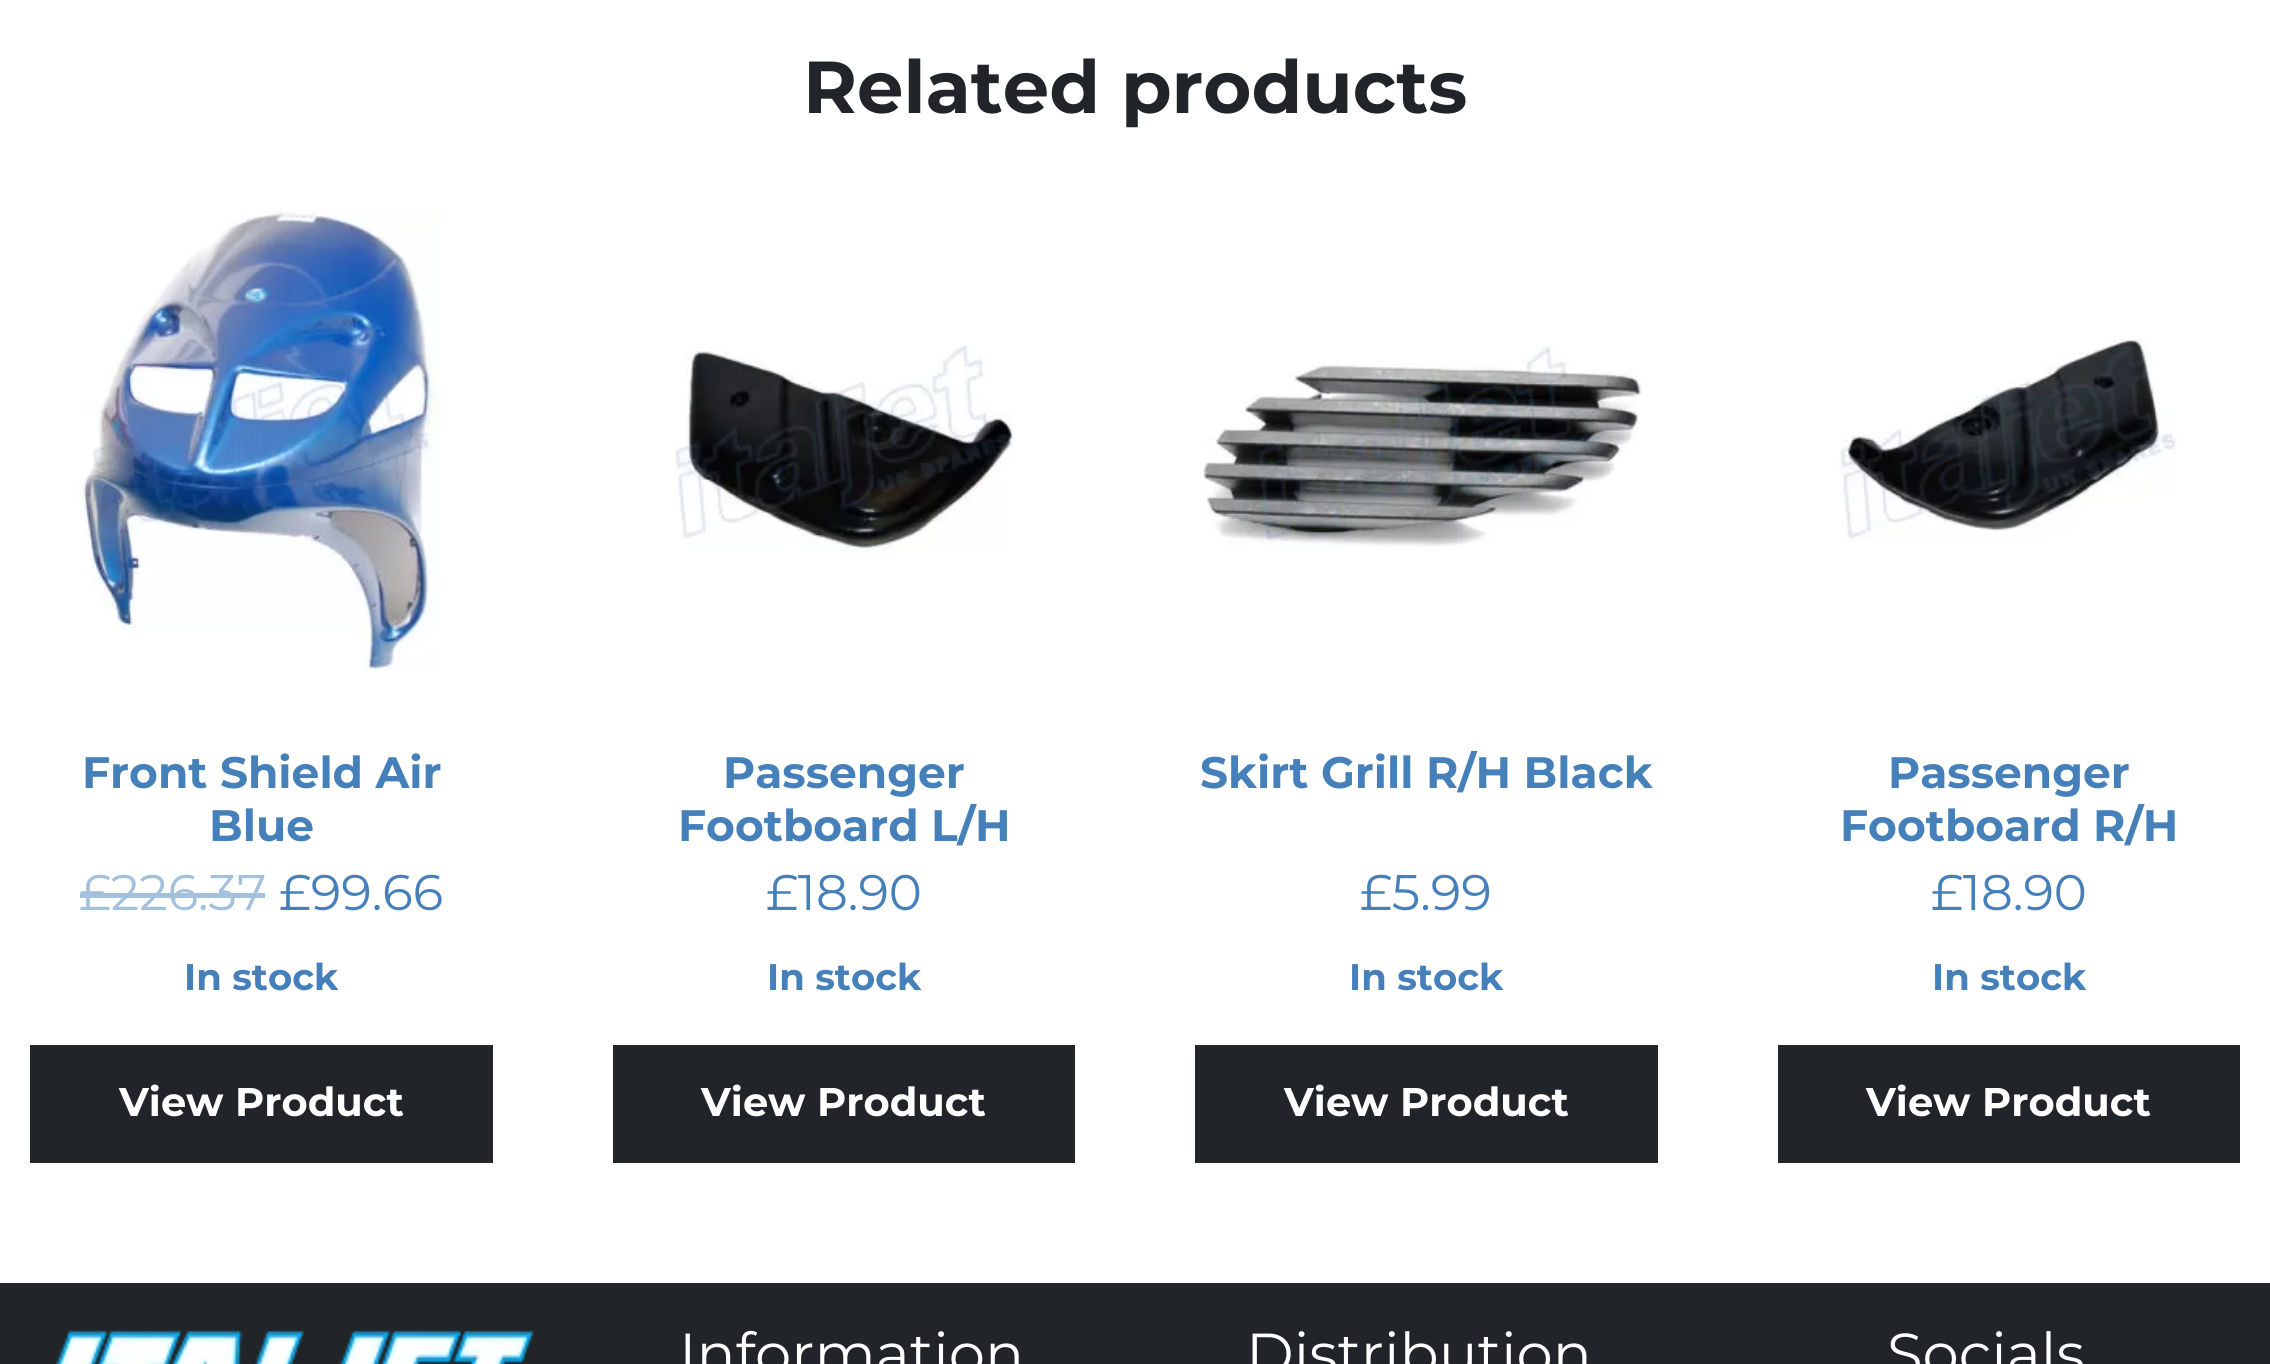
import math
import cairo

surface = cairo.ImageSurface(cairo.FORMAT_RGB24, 2270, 1364)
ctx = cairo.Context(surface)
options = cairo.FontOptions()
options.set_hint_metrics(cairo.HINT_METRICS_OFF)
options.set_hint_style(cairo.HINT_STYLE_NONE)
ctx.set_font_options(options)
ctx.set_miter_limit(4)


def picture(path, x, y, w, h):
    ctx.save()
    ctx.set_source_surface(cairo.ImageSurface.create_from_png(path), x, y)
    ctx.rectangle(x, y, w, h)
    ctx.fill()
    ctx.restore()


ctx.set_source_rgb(1, 1, 1)
ctx.paint()
ctx.select_font_face("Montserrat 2 Thin")
ctx.set_font_size(73.5)
ctx.set_source_rgb(0.129, 0.145, 0.161)
ctx.move_to(803, 113)
ctx.show_text("Related products")
picture("img1.png", 79, 210, 362, 462)
ctx.set_font_size(44)
ctx.set_source_rgb(0.275, 0.502, 0.729)
ctx.move_to(82, 788)
ctx.show_text("Front Shield Air")
ctx.move_to(209, 841)
ctx.show_text("Blue")
ctx.select_font_face("Montserrat Thin")
ctx.set_font_size(50)
ctx.set_source_rgb(0.639, 0.753, 0.867)
ctx.move_to(79, 910)
ctx.show_text("£226.37")
ctx.rectangle(80, 893, 185, 5)
ctx.fill()
ctx.set_source_rgb(0.275, 0.502, 0.729)
ctx.move_to(279, 910)
ctx.show_text("£99.66")
ctx.select_font_face("Montserrat 2 Thin")
ctx.set_font_size(37)
ctx.move_to(184, 990)
ctx.show_text("In stock")
ctx.set_source_rgb(0.129, 0.145, 0.161)
ctx.rectangle(30, 1045, 463, 118)
ctx.fill()
ctx.set_font_size(40)
ctx.set_source_rgb(1, 1, 1)
ctx.move_to(119, 1116)
ctx.show_text("View Product")
picture("img2.png", 675, 345, 339, 208)
ctx.set_font_size(44)
ctx.set_source_rgb(0.275, 0.502, 0.729)
ctx.move_to(723, 788)
ctx.show_text("Passenger")
ctx.move_to(678, 841)
ctx.show_text("Footboard L/H")
ctx.select_font_face("Montserrat Thin")
ctx.set_font_size(50)
ctx.move_to(766, 910)
ctx.show_text("£18.90")
ctx.select_font_face("Montserrat 2 Thin")
ctx.set_font_size(37)
ctx.move_to(767, 990)
ctx.show_text("In stock")
ctx.set_source_rgb(0.129, 0.145, 0.161)
ctx.rectangle(613, 1045, 462, 118)
ctx.fill()
ctx.set_font_size(40)
ctx.set_source_rgb(1, 1, 1)
ctx.move_to(701, 1116)
ctx.show_text("View Product")
picture("img3.png", 1203, 345, 439, 203)
ctx.set_font_size(44)
ctx.set_source_rgb(0.275, 0.502, 0.729)
ctx.move_to(1200, 788)
ctx.show_text("Skirt Grill R/H Black")
ctx.select_font_face("Montserrat Thin")
ctx.set_font_size(50)
ctx.move_to(1360, 910)
ctx.show_text("£5.99")
ctx.select_font_face("Montserrat 2 Thin")
ctx.set_font_size(37)
ctx.move_to(1349, 990)
ctx.show_text("In stock")
ctx.set_source_rgb(0.129, 0.145, 0.161)
ctx.rectangle(1195, 1045, 463, 118)
ctx.fill()
ctx.set_font_size(40)
ctx.set_source_rgb(1, 1, 1)
ctx.move_to(1284, 1116)
ctx.show_text("View Product")
picture("img4.png", 1839, 339, 338, 201)
ctx.set_font_size(44)
ctx.set_source_rgb(0.275, 0.502, 0.729)
ctx.move_to(1888, 788)
ctx.show_text("Passenger")
ctx.move_to(1840, 841)
ctx.show_text("Footboard R/H")
ctx.select_font_face("Montserrat Thin")
ctx.set_font_size(50)
ctx.move_to(1931, 910)
ctx.show_text("£18.90")
ctx.select_font_face("Montserrat 2 Thin")
ctx.set_font_size(37)
ctx.move_to(1932, 990)
ctx.show_text("In stock")
ctx.set_source_rgb(0.129, 0.145, 0.161)
ctx.rectangle(1778, 1045, 462, 118)
ctx.fill()
ctx.set_font_size(40)
ctx.set_source_rgb(1, 1, 1)
ctx.move_to(1866, 1116)
ctx.show_text("View Product")
ctx.set_source_rgb(0.129, 0.145, 0.161)
ctx.rectangle(0, 1283, 2270, 81)
ctx.fill()
picture("img5.png", 56, 1330, 478, 34)
ctx.select_font_face("Montserrat Thin")
ctx.set_font_size(57.75)
ctx.set_source_rgb(1, 1, 1)
ctx.move_to(679, 1374)
ctx.show_text("Information")
ctx.move_to(1246, 1374)
ctx.show_text("Distribution")
ctx.move_to(1887, 1374)
ctx.show_text("Socials")
surface.write_to_png("page.png")
